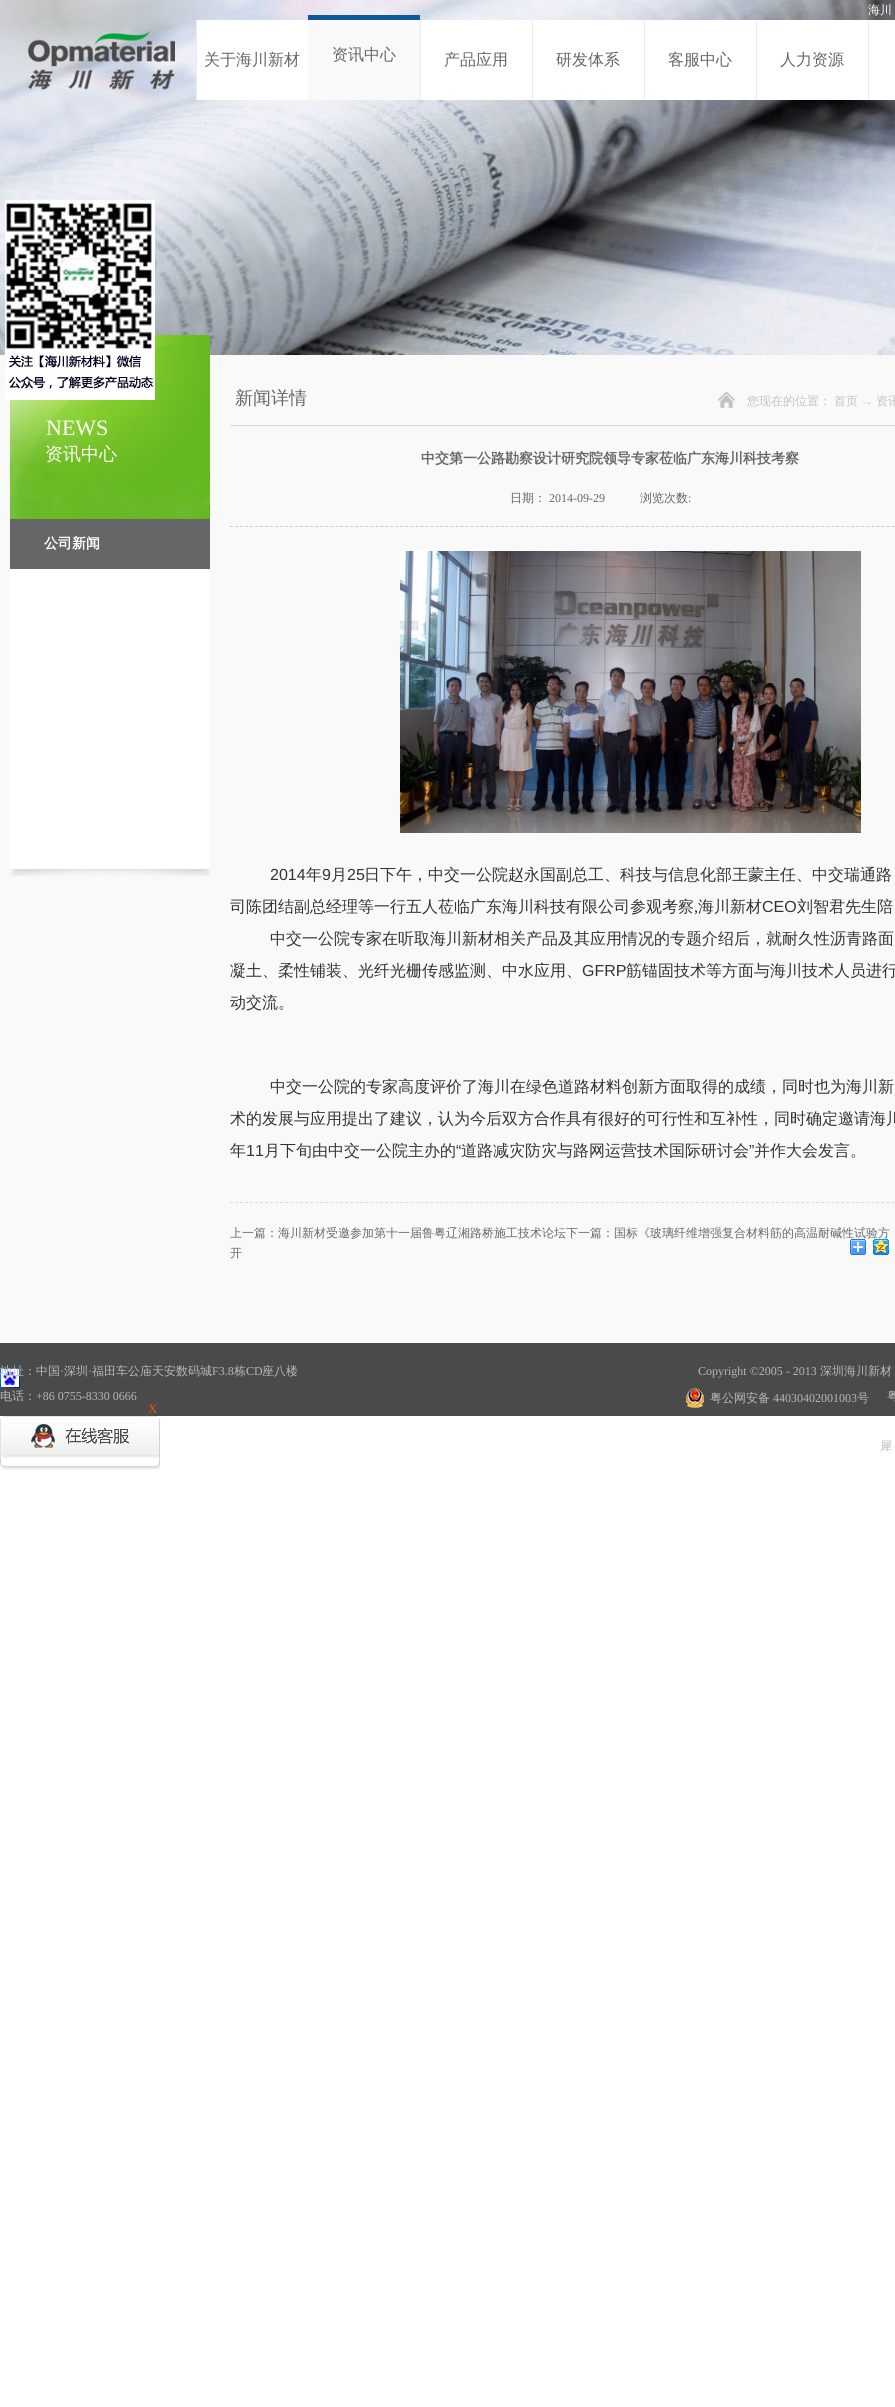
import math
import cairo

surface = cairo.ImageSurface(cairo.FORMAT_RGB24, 895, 2407)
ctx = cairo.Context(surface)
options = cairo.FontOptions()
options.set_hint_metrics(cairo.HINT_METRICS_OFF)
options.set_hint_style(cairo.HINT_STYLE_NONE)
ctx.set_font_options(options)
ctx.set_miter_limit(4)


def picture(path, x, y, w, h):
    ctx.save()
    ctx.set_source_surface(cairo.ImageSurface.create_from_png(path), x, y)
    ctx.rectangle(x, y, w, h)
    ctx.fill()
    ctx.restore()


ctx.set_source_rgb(1, 1, 1)
ctx.paint()
picture("img1.png", 0, 0, 895, 355)
ctx.select_font_face("WenQuanYi Zen Hei Medium")
ctx.set_font_size(12)
ctx.set_source_rgb(1, 1, 1)
ctx.move_to(868, 14)
ctx.show_text("海川")
picture("img2.png", 28, 29, 147, 61)
ctx.rectangle(197, 20, 111, 80)
ctx.fill()
ctx.set_source_rgb(0.918, 0.918, 0.918)
ctx.rectangle(196, 20, 1, 80)
ctx.fill()
ctx.set_font_size(16)
ctx.set_source_rgb(0.4, 0.4, 0.4)
ctx.move_to(204, 65)
ctx.show_text("关于海川新材")
picture("img3.png", 308, 15, 112, 85)
ctx.move_to(332, 60)
ctx.show_text("资讯中心")
ctx.set_source_rgb(1, 1, 1)
ctx.rectangle(421, 20, 111, 80)
ctx.fill()
ctx.set_source_rgb(0.918, 0.918, 0.918)
ctx.rectangle(420, 20, 1, 80)
ctx.fill()
ctx.set_source_rgb(0.4, 0.4, 0.4)
ctx.move_to(444, 65)
ctx.show_text("产品应用")
ctx.set_source_rgb(1, 1, 1)
ctx.rectangle(533, 20, 111, 80)
ctx.fill()
ctx.set_source_rgb(0.918, 0.918, 0.918)
ctx.rectangle(532, 20, 1, 80)
ctx.fill()
ctx.set_source_rgb(0.4, 0.4, 0.4)
ctx.move_to(556, 65)
ctx.show_text("研发体系")
ctx.set_source_rgb(1, 1, 1)
ctx.rectangle(645, 20, 111, 80)
ctx.fill()
ctx.set_source_rgb(0.918, 0.918, 0.918)
ctx.rectangle(644, 20, 1, 80)
ctx.fill()
ctx.set_source_rgb(0.4, 0.4, 0.4)
ctx.move_to(668, 65)
ctx.show_text("客服中心")
ctx.set_source_rgb(1, 1, 1)
ctx.rectangle(757, 20, 111, 80)
ctx.fill()
ctx.set_source_rgb(0.918, 0.918, 0.918)
ctx.rectangle(756, 20, 1, 80)
ctx.fill()
ctx.set_source_rgb(0.4, 0.4, 0.4)
ctx.move_to(780, 65)
ctx.show_text("人力资源")
ctx.set_source_rgb(1, 1, 1)
ctx.rectangle(869, 20, 26, 80)
ctx.fill()
ctx.set_source_rgb(0.918, 0.918, 0.918)
ctx.rectangle(868, 20, 1, 80)
ctx.fill()
ctx.set_source_rgb(0.973, 0.973, 0.973)
ctx.rectangle(0, 355, 895, 988)
ctx.fill()
picture("img4.png", 10, 335, 200, 184)
ctx.select_font_face("Liberation Serif")
ctx.set_font_size(22)
ctx.set_source_rgb(1, 1, 1)
ctx.move_to(46, 435)
ctx.show_text("NEWS")
ctx.select_font_face("WenQuanYi Zen Hei Medium")
ctx.set_font_size(18)
ctx.move_to(45, 460)
ctx.show_text("资讯中心")
ctx.rectangle(10, 569, 200, 300)
ctx.fill()
picture("img5.png", 10, 869, 200, 7)
ctx.set_source_rgb(0.4, 0.4, 0.4)
ctx.rectangle(10, 519, 200, 50)
ctx.fill()
ctx.select_font_face("WenQuanYi Zen Hei", cairo.FONT_SLANT_NORMAL, cairo.FONT_WEIGHT_BOLD)
ctx.set_font_size(14)
ctx.set_source_rgb(1, 1, 1)
ctx.move_to(44, 548)
ctx.show_text("公司新闻")
ctx.set_source_rgb(0.859, 0.859, 0.859)
ctx.rectangle(230, 425, 665, 1)
ctx.fill()
ctx.select_font_face("WenQuanYi Zen Hei Medium")
ctx.set_font_size(18)
ctx.set_source_rgb(0.4, 0.4, 0.4)
ctx.move_to(235, 404)
ctx.show_text("新闻详情")
picture("img6.png", 718, 392, 17, 16)
ctx.set_font_size(12)
ctx.set_source_rgb(0.761, 0.761, 0.765)
ctx.move_to(747, 405)
ctx.show_text("您现在的位置：")
ctx.move_to(834, 405)
ctx.show_text("首页")
ctx.select_font_face("Liberation Serif")
ctx.move_to(861, 405)
ctx.show_text("→")
ctx.select_font_face("WenQuanYi Zen Hei Medium")
ctx.move_to(876, 405)
ctx.show_text("资讯")
ctx.new_path()
ctx.move_to(230, 526.5)
ctx.line_to(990, 526.5)
ctx.set_source_rgb(0.8, 0.8, 0.8)
ctx.set_line_width(1)
ctx.set_dash([3, 2.01])
ctx.stroke()
ctx.select_font_face("WenQuanYi Zen Hei", cairo.FONT_SLANT_NORMAL, cairo.FONT_WEIGHT_BOLD)
ctx.set_font_size(14)
ctx.set_source_rgb(0.4, 0.4, 0.4)
ctx.move_to(421, 463)
ctx.show_text("中交第一公路勘察设计研究院领导专家莅临广东海川科技考察")
ctx.select_font_face("WenQuanYi Zen Hei Medium")
ctx.set_font_size(12)
ctx.move_to(510, 502)
ctx.show_text("日期：")
ctx.select_font_face("Liberation Serif")
ctx.move_to(549, 502)
ctx.show_text("2014-09-29")
ctx.select_font_face("WenQuanYi Zen Hei Medium")
ctx.move_to(640, 502)
ctx.show_text("浏览次数")
ctx.select_font_face("Liberation Serif")
ctx.move_to(688, 502)
ctx.show_text(":")
picture("img7.png", 400, 551, 461, 282)
ctx.select_font_face("Liberation Sans")
ctx.set_font_size(16)
ctx.set_source_rgb(0.2, 0.2, 0.2)
ctx.move_to(270, 880)
ctx.show_text("2014")
ctx.select_font_face("WenQuanYi Zen Hei Medium")
ctx.move_to(306, 880)
ctx.show_text("年")
ctx.select_font_face("Liberation Sans")
ctx.move_to(322, 880)
ctx.show_text("9")
ctx.select_font_face("WenQuanYi Zen Hei Medium")
ctx.move_to(331, 880)
ctx.show_text("月")
ctx.select_font_face("Liberation Sans")
ctx.move_to(347, 880)
ctx.show_text("25")
ctx.select_font_face("WenQuanYi Zen Hei Medium")
ctx.move_to(364, 880)
ctx.show_text("日下午，中交一公院赵永国副总工、科技与信息化部王蒙主任、中交瑞通路")
ctx.move_to(230, 912)
ctx.show_text("司陈团结副总经理等一行五人莅临广东海川科技有限公司参观考察")
ctx.select_font_face("Liberation Serif")
ctx.move_to(694, 912)
ctx.show_text(",")
ctx.select_font_face("WenQuanYi Zen Hei Medium")
ctx.move_to(698, 912)
ctx.show_text("海川新材")
ctx.select_font_face("Liberation Sans")
ctx.move_to(762, 912)
ctx.show_text("CEO")
ctx.select_font_face("WenQuanYi Zen Hei Medium")
ctx.move_to(797, 912)
ctx.show_text("刘智君先生陪")
ctx.move_to(270, 944)
ctx.show_text("中交一公院专家在听取海川新材相关产品及其应用情况的专题介绍后，就耐久性沥青路面")
ctx.move_to(230, 976)
ctx.show_text("凝土、柔性铺装、光纤光栅传感监测、中水应用、")
ctx.select_font_face("Liberation Sans")
ctx.move_to(582, 976)
ctx.show_text("GFRP")
ctx.select_font_face("WenQuanYi Zen Hei Medium")
ctx.move_to(626, 976)
ctx.show_text("筋锚固技术等方面与海川技术人员进行")
ctx.move_to(230, 1008)
ctx.show_text("动交流。")
ctx.move_to(270, 1092)
ctx.show_text("中交一公院的专家高度评价了海川在绿色道路材料创新方面取得的成绩，同时也为海川新")
ctx.move_to(230, 1124)
ctx.show_text("术的发展与应用提出了建议，认为今后双方合作具有很好的可行性和互补性，同时确定邀请海川")
ctx.move_to(230, 1156)
ctx.show_text("年")
ctx.select_font_face("Liberation Sans")
ctx.move_to(246, 1156)
ctx.show_text("11")
ctx.select_font_face("WenQuanYi Zen Hei Medium")
ctx.move_to(264, 1156)
ctx.show_text("月下旬由中交一公院主办的")
ctx.select_font_face("Liberation Sans")
ctx.move_to(456, 1156)
ctx.show_text("“")
ctx.select_font_face("WenQuanYi Zen Hei Medium")
ctx.move_to(461, 1156)
ctx.show_text("道路减灾防灾与路网运营技术国际研讨会")
ctx.select_font_face("Liberation Sans")
ctx.move_to(749, 1156)
ctx.show_text("”")
ctx.select_font_face("WenQuanYi Zen Hei Medium")
ctx.move_to(754, 1156)
ctx.show_text("并作大会发言。")
ctx.new_path()
ctx.move_to(230, 1202.5)
ctx.line_to(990, 1202.5)
ctx.set_source_rgb(0.851, 0.855, 0.867)
ctx.stroke()
ctx.set_font_size(12)
ctx.set_source_rgb(0.388, 0.42, 0.459)
ctx.move_to(230, 1237)
ctx.show_text("上一篇：海川新材受邀参加第十一届鲁粤辽湘路桥施工技术论坛下一篇：国标《玻璃纤维增强复合材料筋的高温耐碱性试验方")
ctx.move_to(230, 1257)
ctx.show_text("开")
ctx.set_source_rgb(0.29, 0.29, 0.29)
ctx.rectangle(0, 1343, 895, 73)
ctx.fill()
picture("img8.png", 850, 1239, 16, 16)
picture("img9.png", 873, 1239, 16, 16)
picture("img11.png", 0, 1368, 20, 20)
ctx.set_source_rgb(0.718, 0.718, 0.718)
ctx.move_to(0, 1375)
ctx.show_text("地址：中国")
ctx.select_font_face("Liberation Serif")
ctx.move_to(60, 1375)
ctx.show_text("·")
ctx.select_font_face("WenQuanYi Zen Hei Medium")
ctx.move_to(64, 1375)
ctx.show_text("深圳")
ctx.select_font_face("Liberation Serif")
ctx.move_to(88, 1375)
ctx.show_text("·")
ctx.select_font_face("WenQuanYi Zen Hei Medium")
ctx.move_to(92, 1375)
ctx.show_text("福田车公庙天安数码城")
ctx.select_font_face("Liberation Serif")
ctx.move_to(212, 1375)
ctx.show_text("F3.8")
ctx.select_font_face("WenQuanYi Zen Hei Medium")
ctx.move_to(234, 1375)
ctx.show_text("栋")
ctx.select_font_face("Liberation Serif")
ctx.move_to(246, 1375)
ctx.show_text("CD")
ctx.select_font_face("WenQuanYi Zen Hei Medium")
ctx.move_to(262, 1375)
ctx.show_text("座八楼")
ctx.move_to(0, 1400)
ctx.show_text("电话：")
ctx.select_font_face("Liberation Serif")
ctx.move_to(36, 1400)
ctx.show_text("+86 0755-8330 0666")
ctx.move_to(698, 1375)
ctx.show_text("Copyright ©2005 - 2013")
ctx.select_font_face("WenQuanYi Zen Hei Medium")
ctx.move_to(820, 1375)
ctx.show_text("深圳海川新材")
picture("img10.png", 686, 1388, 18, 20)
ctx.move_to(710, 1402)
ctx.show_text("粤公网安备")
ctx.select_font_face("Liberation Serif")
ctx.move_to(773, 1402)
ctx.show_text("44030402001003")
ctx.select_font_face("WenQuanYi Zen Hei Medium")
ctx.move_to(857, 1402)
ctx.show_text("号")
ctx.move_to(887, 1400)
ctx.show_text("粤")
ctx.move_to(880, 1450)
ctx.show_text("犀")
picture("img12.png", 0, 1416, 160, 42)
ctx.select_font_face("Liberation Serif")
ctx.set_font_size(13)
ctx.set_source_rgb(0.933, 0.306, 0.063)
ctx.move_to(148, 1413)
ctx.show_text("X")
picture("img13.png", 0, 1458, 160, 12)
picture("img14.png", 5, 200, 150, 200)
surface.write_to_png("page.png")
